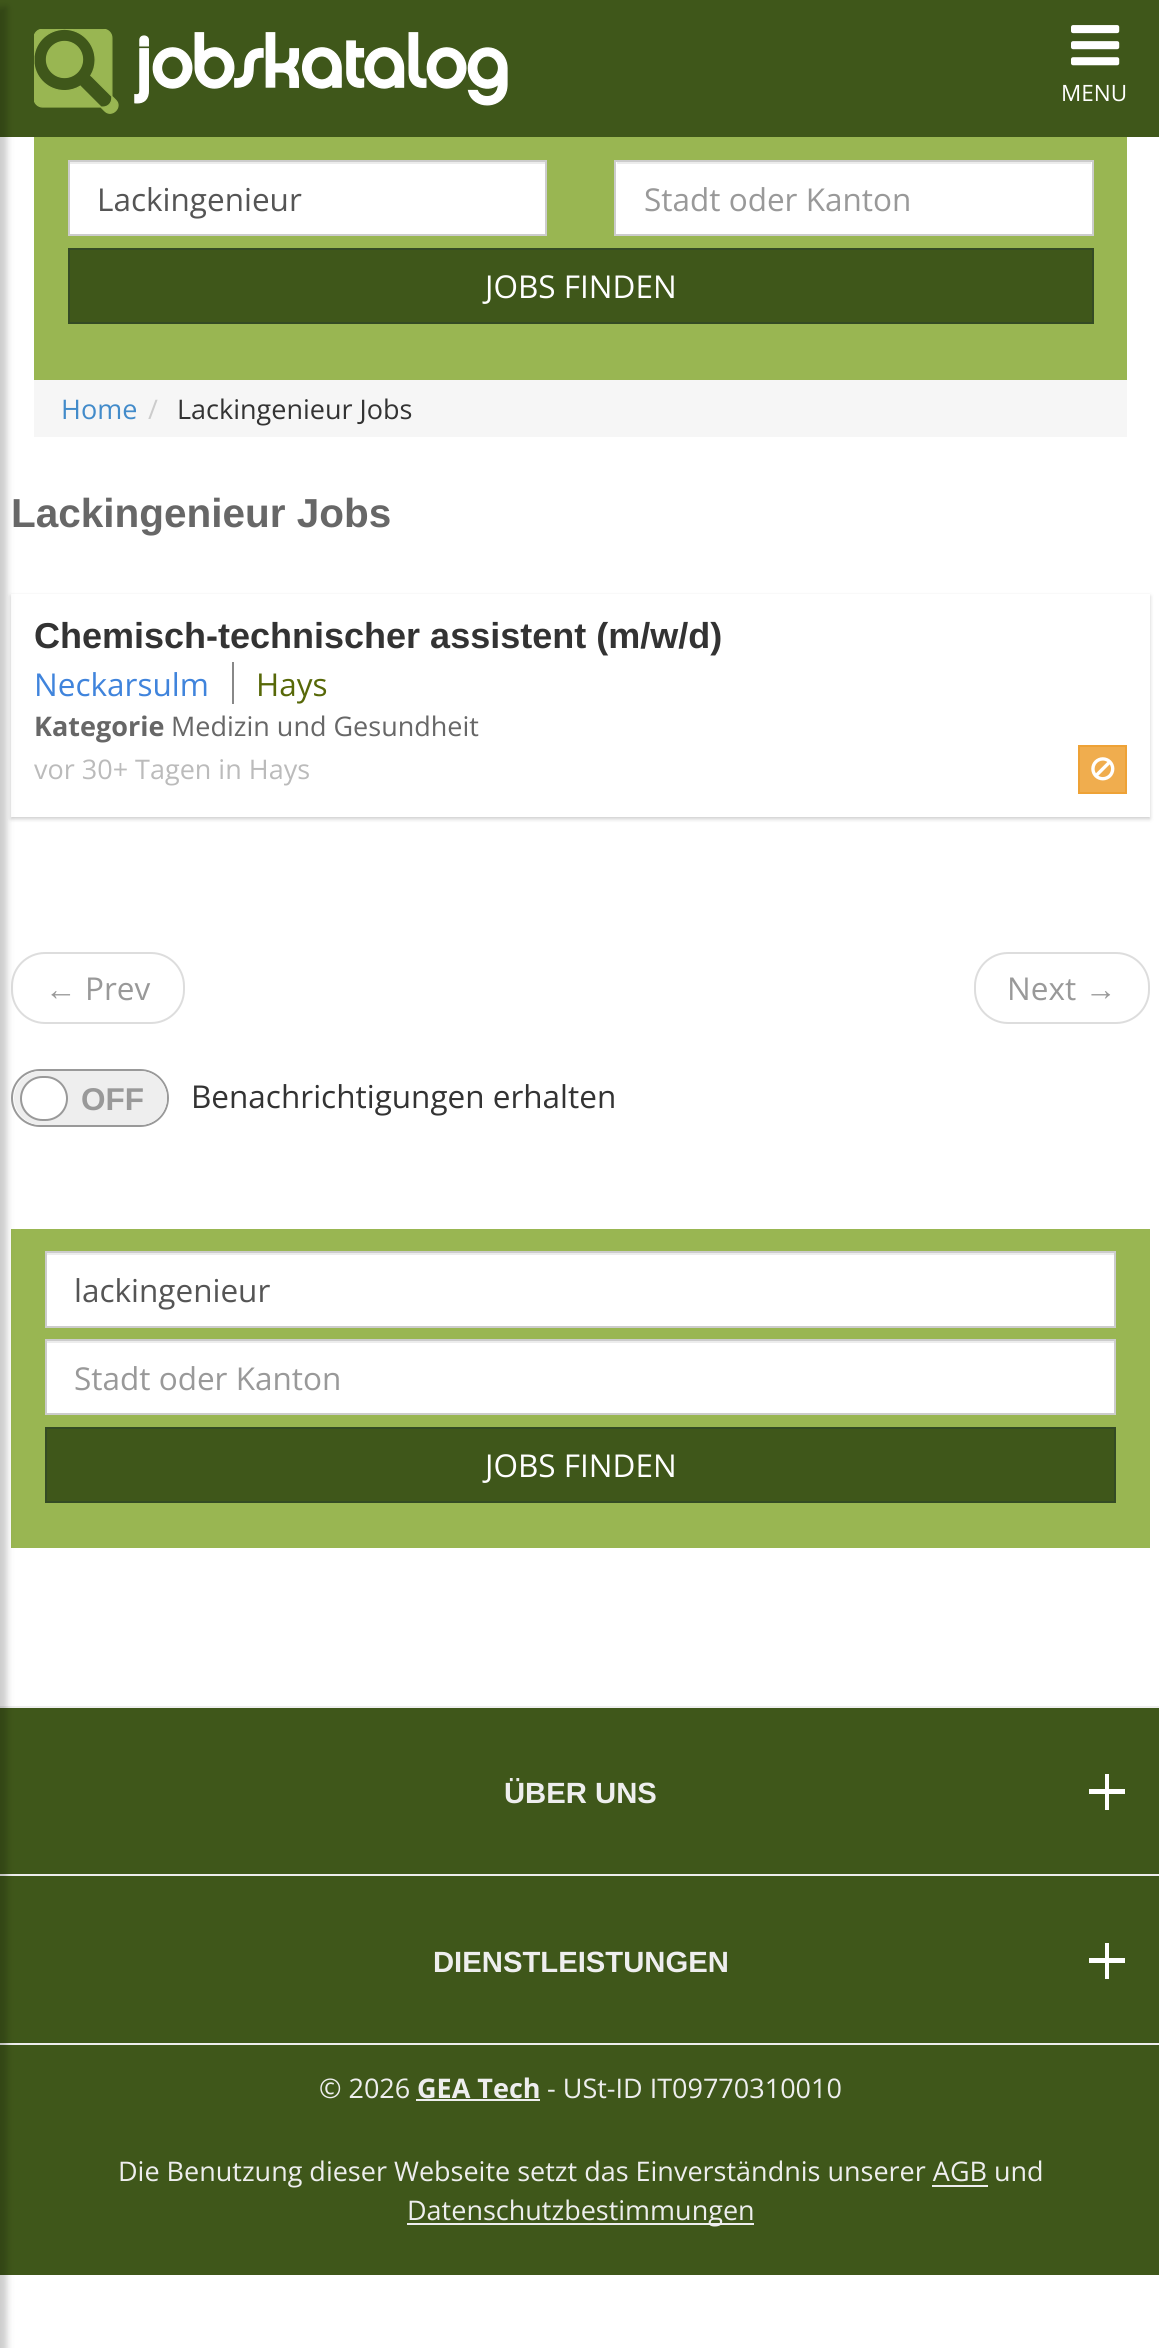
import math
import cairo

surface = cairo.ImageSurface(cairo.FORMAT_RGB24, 1159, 2348)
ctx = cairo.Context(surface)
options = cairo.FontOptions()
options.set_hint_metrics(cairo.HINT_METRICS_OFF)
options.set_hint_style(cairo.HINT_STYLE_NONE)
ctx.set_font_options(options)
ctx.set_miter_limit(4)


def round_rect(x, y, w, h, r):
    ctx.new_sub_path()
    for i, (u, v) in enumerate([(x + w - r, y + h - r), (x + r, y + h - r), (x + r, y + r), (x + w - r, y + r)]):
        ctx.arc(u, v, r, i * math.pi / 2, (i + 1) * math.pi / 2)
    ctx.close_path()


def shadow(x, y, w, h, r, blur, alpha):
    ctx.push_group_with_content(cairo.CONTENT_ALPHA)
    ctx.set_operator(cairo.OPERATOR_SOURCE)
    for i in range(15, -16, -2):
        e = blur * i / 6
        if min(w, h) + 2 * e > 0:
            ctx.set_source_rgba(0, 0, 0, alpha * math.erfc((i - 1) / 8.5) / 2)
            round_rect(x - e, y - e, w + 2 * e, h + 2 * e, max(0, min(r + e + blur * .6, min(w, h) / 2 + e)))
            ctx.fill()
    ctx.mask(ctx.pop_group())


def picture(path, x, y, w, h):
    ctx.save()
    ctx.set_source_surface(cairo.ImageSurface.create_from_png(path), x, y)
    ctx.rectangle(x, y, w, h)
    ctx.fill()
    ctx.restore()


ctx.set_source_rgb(1, 1, 1)
ctx.paint()
ctx.set_source_rgb(0.247, 0.341, 0.102)
ctx.rectangle(0, 0, 1159, 137)
ctx.fill()
ctx.set_source_rgb(0, 0, 0)
shadow(11, 596, 1139, 223, 0, 2, 0.2)
ctx.set_source_rgb(1, 1, 1)
ctx.rectangle(11, 594, 1139, 223)
ctx.fill()
round_rect(12, 953, 172, 70, 33)
ctx.set_source_rgb(0.867, 0.867, 0.867)
ctx.stroke()
round_rect(12, 1070, 156, 56, 28)
ctx.set_source_rgb(0.6, 0.6, 0.6)
ctx.stroke()
ctx.set_source_rgb(0.933, 0.933, 0.933)
round_rect(14, 1071, 153, 54, 27)
ctx.fill()
ctx.set_source_rgb(0.6, 0.714, 0.322)
ctx.rectangle(11, 1229, 1139, 319)
ctx.fill()
ctx.set_source_rgb(0.247, 0.341, 0.102)
ctx.rectangle(0, 1708, 1159, 567)
ctx.fill()
ctx.set_source_rgb(0.933, 0.933, 0.933)
ctx.rectangle(0, 1706, 1159, 2)
ctx.fill()
ctx.rectangle(0, 1874, 1159, 2)
ctx.fill()
ctx.rectangle(0, 2043, 1159, 2)
ctx.fill()
ctx.set_source_rgb(0, 0, 0)
shadow(-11, 7, 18, 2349, 0, 3.5, 0.2)
picture("img1.png", 34, 29, 474, 85)
picture("img2.png", 1071, 25, 49, 41)
ctx.select_font_face("Open Sans")
ctx.set_font_size(22.5)
ctx.set_source_rgb(1, 1, 1)
ctx.move_to(1061, 101)
ctx.show_text("MENU")
ctx.set_source_rgb(0.6, 0.714, 0.322)
ctx.rectangle(34, 137, 1093, 243)
ctx.fill()
ctx.set_source_rgb(1, 1, 1)
ctx.rectangle(70, 164, 475, 70)
ctx.fill()
ctx.set_source_rgb(0.925, 0.925, 0.925)
ctx.rectangle(70, 162, 475, 2)
ctx.fill()
ctx.rectangle(69, 161, 477, 74)
ctx.set_source_rgb(0.8, 0.8, 0.8)
ctx.stroke()
ctx.set_font_size(31.5)
ctx.set_source_rgb(0.333, 0.333, 0.333)
ctx.move_to(97, 211)
ctx.show_text("Lackingenieur")
ctx.set_source_rgb(1, 1, 1)
ctx.rectangle(616, 162, 476, 72)
ctx.fill()
ctx.set_source_rgb(0.925, 0.925, 0.925)
ctx.rectangle(617, 162, 474, 2)
ctx.fill()
ctx.rectangle(615, 161, 478, 74)
ctx.set_source_rgb(0.8, 0.8, 0.8)
ctx.stroke()
ctx.set_source_rgb(0.6, 0.6, 0.6)
ctx.move_to(644, 211)
ctx.show_text("Stadt oder Kanton")
ctx.set_source_rgb(0.247, 0.341, 0.102)
ctx.rectangle(69, 249, 1024, 74)
ctx.fill_preserve()
ctx.set_source_rgb(0.204, 0.294, 0.141)
ctx.stroke()
ctx.set_source_rgb(1, 1, 1)
ctx.move_to(485, 298)
ctx.show_text("JOBS FINDEN")
ctx.set_source_rgb(0.961, 0.961, 0.961)
ctx.rectangle(34, 380, 1093, 57)
ctx.fill()
ctx.set_font_size(27)
ctx.set_source_rgb(0.259, 0.545, 0.792)
ctx.move_to(61, 419)
ctx.show_text("Home")
ctx.set_source_rgb(0.8, 0.8, 0.8)
ctx.move_to(148, 419)
ctx.show_text("/")
ctx.set_source_rgb(0.2, 0.2, 0.2)
ctx.move_to(177, 419)
ctx.show_text("Lackingenieur Jobs")
ctx.select_font_face("Liberation Sans", cairo.FONT_SLANT_NORMAL, cairo.FONT_WEIGHT_BOLD)
ctx.set_font_size(40.5)
ctx.set_source_rgb(0.404, 0.404, 0.404)
ctx.move_to(11, 527)
ctx.show_text("Lackingenieur Jobs")
ctx.set_font_size(36)
ctx.set_source_rgb(0.2, 0.2, 0.2)
ctx.move_to(34, 648)
ctx.show_text("Chemisch-technischer assistent (m/w/d)")
ctx.select_font_face("Open Sans")
ctx.set_font_size(31.5)
ctx.set_source_rgb(0.251, 0.518, 0.863)
ctx.move_to(34, 696)
ctx.show_text("Neckarsulm")
ctx.set_source_rgb(0.533, 0.533, 0.533)
ctx.rectangle(232, 662, 2, 42)
ctx.fill()
ctx.set_source_rgb(0.341, 0.408, 0.035)
ctx.move_to(256, 696)
ctx.show_text("Hays")
ctx.select_font_face("Open Sans", cairo.FONT_SLANT_NORMAL, cairo.FONT_WEIGHT_BOLD)
ctx.set_font_size(27)
ctx.set_source_rgb(0.404, 0.404, 0.404)
ctx.move_to(34, 736)
ctx.show_text("Kategorie")
ctx.select_font_face("Open Sans")
ctx.move_to(171, 736)
ctx.show_text("Medizin und Gesundheit")
ctx.set_source_rgb(0.733, 0.733, 0.733)
ctx.move_to(34, 779)
ctx.show_text("vor 30+ Tagen in Hays")
ctx.set_source_rgb(0.941, 0.678, 0.306)
ctx.rectangle(1079, 746, 47, 47)
ctx.fill_preserve()
ctx.set_source_rgb(0.933, 0.635, 0.212)
ctx.stroke()
picture("img3.png", 1091, 757, 24, 24)
ctx.select_font_face("Liberation Sans")
ctx.set_font_size(31.5)
ctx.set_source_rgb(0.6, 0.6, 0.6)
ctx.move_to(45, 1000)
ctx.show_text("←")
ctx.select_font_face("Open Sans")
ctx.move_to(85, 1000)
ctx.show_text("Prev")
round_rect(975, 953, 174, 70, 33)
ctx.set_source_rgb(0.867, 0.867, 0.867)
ctx.stroke()
ctx.set_source_rgb(0.6, 0.6, 0.6)
ctx.move_to(1007, 1000)
ctx.show_text("Next")
ctx.select_font_face("Liberation Sans")
ctx.move_to(1085, 1000)
ctx.show_text("→")
ctx.set_source_rgb(1, 1, 1)
round_rect(21, 1077, 46, 43, 21.5)
ctx.fill_preserve()
ctx.set_source_rgb(0.6, 0.6, 0.6)
ctx.stroke()
ctx.select_font_face("Liberation Sans", cairo.FONT_SLANT_NORMAL, cairo.FONT_WEIGHT_BOLD)
ctx.move_to(81, 1110)
ctx.show_text("OFF")
ctx.select_font_face("Open Sans")
ctx.set_source_rgb(0.2, 0.2, 0.2)
ctx.move_to(191, 1108)
ctx.show_text("Benachrichtigungen erhalten")
ctx.set_source_rgb(1, 1, 1)
ctx.rectangle(47, 1255, 1067, 71)
ctx.fill()
ctx.set_source_rgb(0.925, 0.925, 0.925)
ctx.rectangle(47, 1253, 1067, 2)
ctx.fill()
ctx.rectangle(46, 1252, 1069, 75)
ctx.set_source_rgb(0.8, 0.8, 0.8)
ctx.stroke()
ctx.set_source_rgb(0.333, 0.333, 0.333)
ctx.move_to(74, 1302)
ctx.show_text("lackingenieur")
ctx.set_source_rgb(1, 1, 1)
ctx.rectangle(47, 1343, 1067, 70)
ctx.fill()
ctx.set_source_rgb(0.925, 0.925, 0.925)
ctx.rectangle(47, 1341, 1067, 2)
ctx.fill()
ctx.rectangle(46, 1340, 1069, 74)
ctx.set_source_rgb(0.8, 0.8, 0.8)
ctx.stroke()
ctx.set_source_rgb(0.6, 0.6, 0.6)
ctx.move_to(74, 1390)
ctx.show_text("Stadt oder Kanton")
ctx.set_source_rgb(0.247, 0.341, 0.102)
ctx.rectangle(46, 1428, 1069, 74)
ctx.fill_preserve()
ctx.set_source_rgb(0.204, 0.294, 0.141)
ctx.stroke()
ctx.set_source_rgb(1, 1, 1)
ctx.move_to(485, 1477)
ctx.show_text("JOBS FINDEN")
ctx.select_font_face("Liberation Sans", cairo.FONT_SLANT_NORMAL, cairo.FONT_WEIGHT_BOLD)
ctx.set_font_size(29.25)
ctx.set_source_rgb(0.933, 0.933, 0.933)
ctx.move_to(504, 1803)
ctx.show_text("ÜBER UNS")
ctx.set_source_rgb(1, 1, 1)
ctx.rectangle(1089, 1789, 36, 5)
ctx.fill()
ctx.rectangle(1105, 1774, 4, 36)
ctx.fill()
ctx.set_source_rgb(0.933, 0.933, 0.933)
ctx.move_to(433, 1972)
ctx.show_text("DIENSTLEISTUNGEN")
ctx.set_source_rgb(1, 1, 1)
ctx.rectangle(1089, 1958, 36, 5)
ctx.fill()
ctx.rectangle(1105, 1943, 4, 36)
ctx.fill()
ctx.select_font_face("Open Sans")
ctx.set_font_size(27)
ctx.set_source_rgb(0.933, 0.933, 0.933)
ctx.move_to(319, 2098)
ctx.show_text("© 2026")
ctx.select_font_face("Open Sans", cairo.FONT_SLANT_NORMAL, cairo.FONT_WEIGHT_BOLD)
ctx.move_to(417, 2098)
ctx.show_text("GEA Tech")
ctx.rectangle(416, 2099, 124, 2)
ctx.fill()
ctx.select_font_face("Open Sans")
ctx.move_to(547, 2098)
ctx.show_text("- USt-ID IT09770310010")
ctx.move_to(118, 2181)
ctx.show_text("Die Benutzung dieser Webseite setzt das Einverständnis unserer AGB und")
ctx.rectangle(932, 2185, 56, 2)
ctx.fill()
ctx.rectangle(407, 2223, 347, 2)
ctx.fill()
ctx.move_to(407, 2220)
ctx.show_text("Datenschutzbestimmungen")
surface.write_to_png("page.png")
